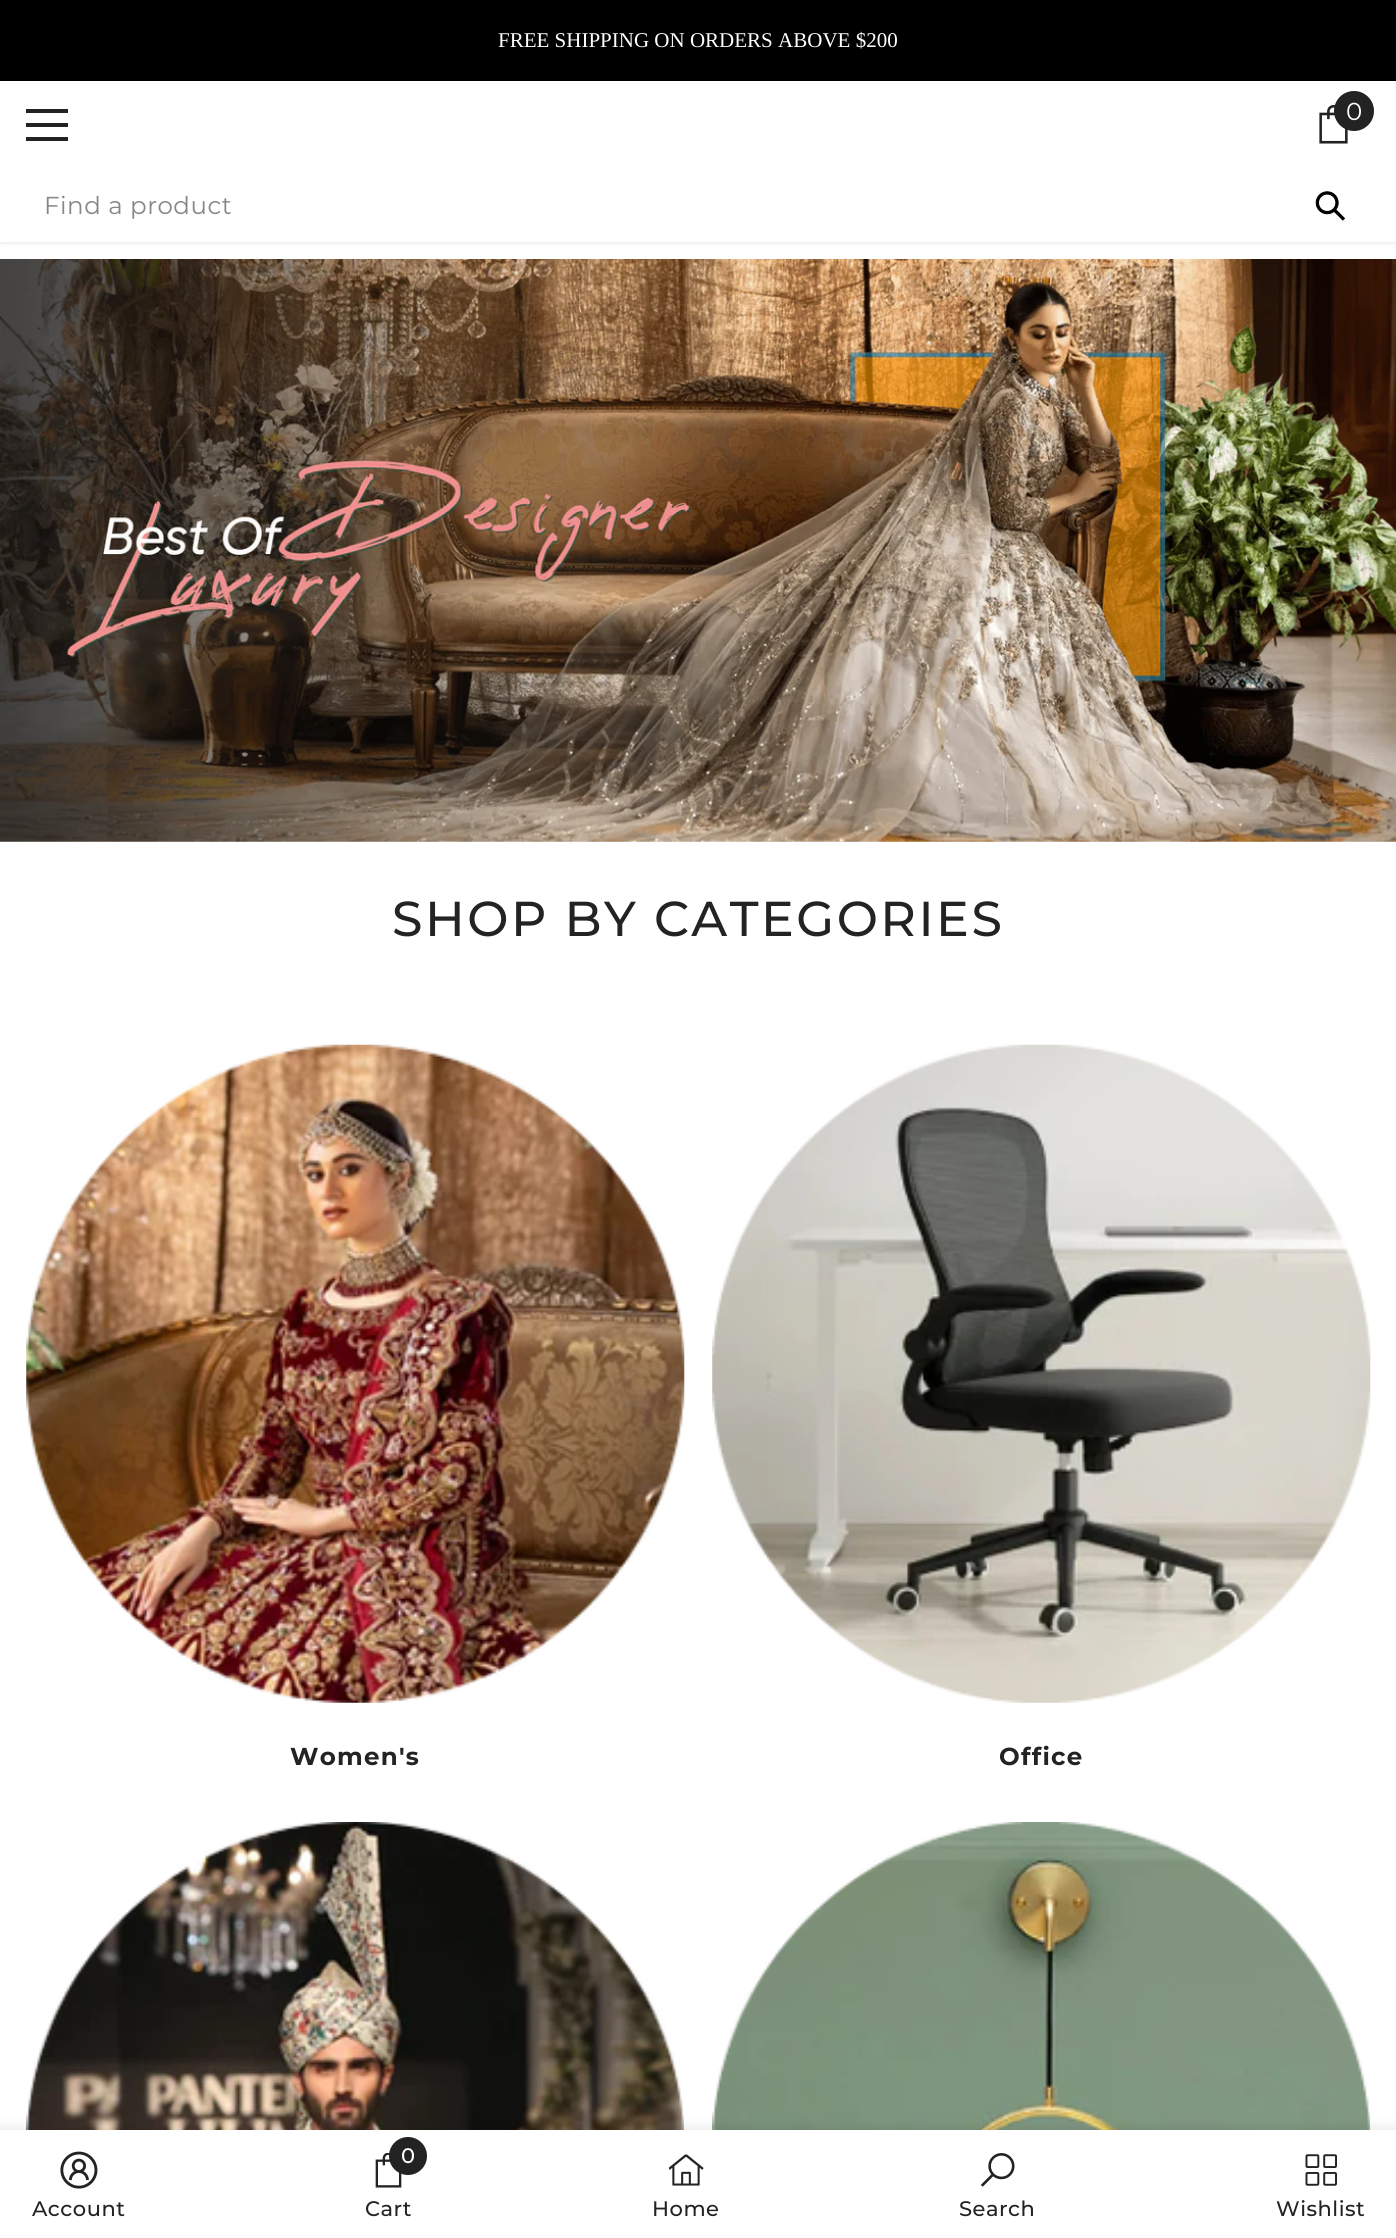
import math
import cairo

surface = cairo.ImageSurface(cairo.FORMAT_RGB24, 1396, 2238)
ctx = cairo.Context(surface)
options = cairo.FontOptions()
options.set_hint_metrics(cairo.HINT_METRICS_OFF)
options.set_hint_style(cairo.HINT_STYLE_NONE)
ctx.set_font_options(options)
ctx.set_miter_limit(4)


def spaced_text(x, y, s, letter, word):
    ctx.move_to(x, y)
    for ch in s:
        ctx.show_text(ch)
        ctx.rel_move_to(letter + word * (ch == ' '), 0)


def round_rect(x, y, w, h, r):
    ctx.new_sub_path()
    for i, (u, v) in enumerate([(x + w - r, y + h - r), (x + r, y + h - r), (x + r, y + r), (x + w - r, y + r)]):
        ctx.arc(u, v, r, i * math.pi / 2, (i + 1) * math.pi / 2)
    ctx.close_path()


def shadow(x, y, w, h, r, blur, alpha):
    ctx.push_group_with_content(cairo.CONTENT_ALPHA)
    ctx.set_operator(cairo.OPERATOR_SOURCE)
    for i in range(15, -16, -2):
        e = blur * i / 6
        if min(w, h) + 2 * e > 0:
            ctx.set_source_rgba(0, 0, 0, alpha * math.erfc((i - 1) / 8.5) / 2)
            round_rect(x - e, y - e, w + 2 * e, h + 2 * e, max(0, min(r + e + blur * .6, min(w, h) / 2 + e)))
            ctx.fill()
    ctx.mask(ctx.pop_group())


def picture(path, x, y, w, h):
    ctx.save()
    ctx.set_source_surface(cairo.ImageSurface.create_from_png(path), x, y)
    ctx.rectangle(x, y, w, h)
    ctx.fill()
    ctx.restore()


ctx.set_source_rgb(1, 1, 1)
ctx.paint()
ctx.set_source_rgb(0, 0, 0)
ctx.rectangle(0, 0, 1396, 81)
ctx.fill()
ctx.select_font_face("Liberation Serif")
ctx.set_font_size(21)
ctx.set_source_rgb(1, 1, 1)
ctx.move_to(498, 47)
ctx.show_text("FREE SHIPPING ON ORDERS ABOVE $200")
ctx.set_source_rgb(0, 0, 0)
shadow(0, 82, 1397, 161, 0, 2.5, 0.1)
ctx.set_source_rgb(1, 1, 1)
ctx.rectangle(0, 81, 1396, 161)
ctx.fill()
ctx.set_source_rgb(0.137, 0.137, 0.137)
ctx.rectangle(26, 123, 42, 4)
ctx.fill()
ctx.rectangle(26, 109, 42, 4)
ctx.fill()
ctx.rectangle(26, 137, 42, 4)
ctx.fill()
picture("img1.png", 1319, 105, 29, 39)
ctx.arc(1354, 111, 20, 0, 2 * math.pi)
ctx.fill()
ctx.select_font_face("Montserrat")
ctx.set_font_size(24.5)
ctx.set_source_rgb(1, 1, 1)
ctx.move_to(1346, 120)
ctx.show_text("0")
ctx.set_source_rgb(0.525, 0.525, 0.525)
spaced_text(44, 214, "Find a product", 0.5, 0)
picture("img2.png", 1315, 191, 31, 30)
picture("img3.png", 0, 259, 1396, 583)
ctx.select_font_face("Montserrat Medium")
ctx.set_font_size(49)
ctx.set_source_rgb(0.137, 0.137, 0.137)
spaced_text(392, 936, "SHOP BY CATEGORIES", 2.5, 0)
picture("img4.png", 26, 1044, 659, 659)
ctx.select_font_face("Montserrat", cairo.FONT_SLANT_NORMAL, cairo.FONT_WEIGHT_BOLD)
ctx.set_font_size(24.5)
spaced_text(290, 1765, "Women's", 1.25, 0)
picture("img5.png", 712, 1044, 659, 659)
spaced_text(999, 1765, "Office", 1.25, 0)
picture("img6.png", 26, 1822, 658, 308)
picture("img7.png", 712, 1822, 658, 308)
ctx.set_source_rgb(0, 0, 0)
shadow(0, 2130, 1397, 108, 0, 8, 0.12)
ctx.set_source_rgb(1, 1, 1)
ctx.rectangle(0, 2130, 1396, 108)
ctx.fill()
picture("img8.png", 60, 2151, 38, 38)
ctx.select_font_face("Montserrat Medium")
ctx.set_font_size(21)
ctx.set_source_rgb(0.137, 0.137, 0.137)
spaced_text(32, 2216, "Account", 0.5, 0)
picture("img9.png", 375, 2153, 27, 35)
ctx.arc(408, 2156, 19, 0, 2 * math.pi)
ctx.fill()
ctx.set_source_rgb(1, 1, 1)
ctx.move_to(401, 2163)
ctx.show_text("0")
ctx.set_source_rgb(0.137, 0.137, 0.137)
spaced_text(365, 2216, "Cart", 0.5, 0)
picture("img10.png", 669, 2154, 35, 32)
spaced_text(652, 2216, "Home", 0.5, 0)
picture("img11.png", 980, 2153, 35, 34)
spaced_text(959, 2216, "Search", 0.5, 0)
picture("img12.png", 1305, 2154, 32, 32)
spaced_text(1276, 2216, "Wishlist", 0.5, 0)
surface.write_to_png("page.png")
